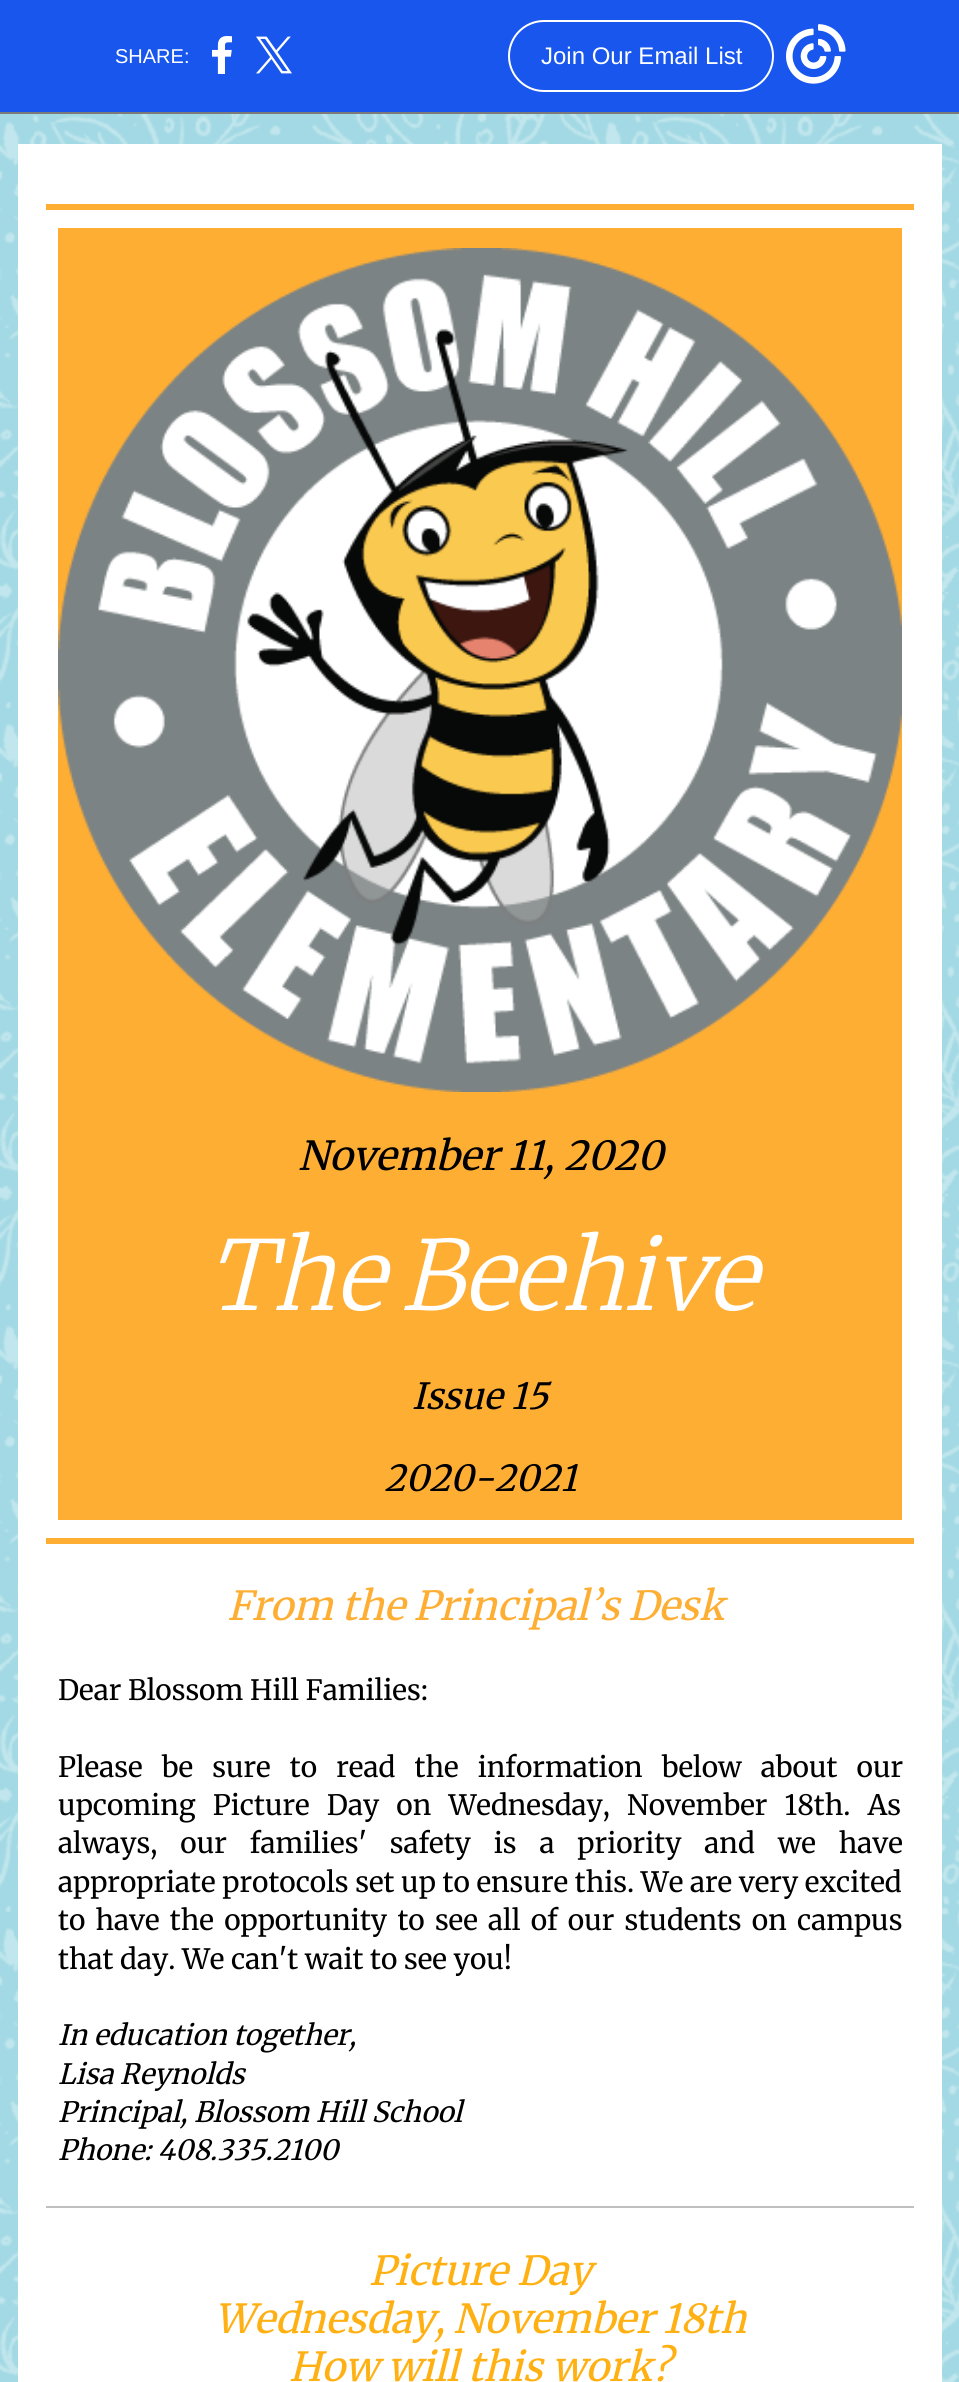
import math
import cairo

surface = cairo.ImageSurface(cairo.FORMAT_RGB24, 959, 2382)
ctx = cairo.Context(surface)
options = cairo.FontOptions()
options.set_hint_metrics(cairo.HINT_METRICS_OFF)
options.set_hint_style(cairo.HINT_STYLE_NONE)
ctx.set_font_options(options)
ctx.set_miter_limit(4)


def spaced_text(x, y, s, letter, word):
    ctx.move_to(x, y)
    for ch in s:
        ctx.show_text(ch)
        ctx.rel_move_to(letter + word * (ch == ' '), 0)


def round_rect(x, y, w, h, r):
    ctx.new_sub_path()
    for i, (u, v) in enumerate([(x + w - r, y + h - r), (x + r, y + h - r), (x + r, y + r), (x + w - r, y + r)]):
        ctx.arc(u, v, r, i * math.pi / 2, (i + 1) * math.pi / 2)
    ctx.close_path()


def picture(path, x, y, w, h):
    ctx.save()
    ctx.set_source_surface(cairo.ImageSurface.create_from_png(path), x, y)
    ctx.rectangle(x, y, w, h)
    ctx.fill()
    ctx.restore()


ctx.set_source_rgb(0.635, 0.851, 0.894)
ctx.paint()
ctx.set_source_rgb(0.094, 0.337, 0.929)
ctx.rectangle(0, 0, 959, 112)
ctx.fill()
ctx.set_source_rgb(0.478, 0.478, 0.478)
ctx.rectangle(0, 112, 959, 2)
ctx.fill()
ctx.select_font_face("Liberation Sans")
ctx.set_font_size(20)
ctx.set_source_rgb(1, 1, 1)
ctx.move_to(115, 63)
ctx.show_text("SHARE:")
picture("img1.png", 212, 36, 20, 38)
picture("img2.png", 256, 36, 36, 38)
round_rect(509, 21, 264, 70, 35)
ctx.stroke()
ctx.set_font_size(24)
ctx.move_to(541, 64)
ctx.show_text("Join Our Email List")
picture("img3.png", 786, 24, 60, 60)
picture("img4.png", 0, 114, 959, 2268)
ctx.rectangle(18, 144, 924, 2238)
ctx.fill()
ctx.set_source_rgb(1, 0.682, 0.204)
ctx.rectangle(46, 204, 868, 6)
ctx.fill()
ctx.rectangle(58, 228, 844, 1292)
ctx.fill()
picture("img5.png", 58, 248, 844, 844)
ctx.select_font_face("Merriweather", cairo.FONT_SLANT_ITALIC)
ctx.set_font_size(40)
ctx.set_source_rgb(0, 0, 0)
ctx.move_to(298, 1170)
ctx.show_text("November 11, 2020")
ctx.select_font_face("Merriweather Light", cairo.FONT_SLANT_ITALIC)
ctx.set_font_size(96)
ctx.set_source_rgb(1, 1, 1)
spaced_text(206, 1310, "The Beehive", 0, -6)
ctx.select_font_face("Merriweather", cairo.FONT_SLANT_ITALIC)
ctx.set_font_size(36)
ctx.set_source_rgb(0, 0, 0)
ctx.move_to(412, 1409)
ctx.show_text("Issue 15")
ctx.move_to(384, 1491)
ctx.show_text("2020-2021")
ctx.set_source_rgb(1, 0.682, 0.204)
ctx.rectangle(46, 1538, 868, 6)
ctx.fill()
ctx.set_font_size(40)
spaced_text(227, 1620, "From the Principal’s Desk", 0, -0.5)
ctx.select_font_face("Merriweather")
ctx.set_font_size(28)
ctx.set_source_rgb(0, 0, 0)
ctx.move_to(58, 1700)
ctx.show_text("Dear Blossom Hill Families:")
spaced_text(58, 1777, "Please be sure to read the information below about our", 0, 12.5)
spaced_text(58, 1815, "upcoming Picture Day on Wednesday, November 18th. As", 0, 10.5)
spaced_text(58, 1853, "always, our families' safety is a priority and we have", 0, 16.25)
ctx.move_to(58, 1892)
ctx.show_text("appropriate protocols set up to ensure this. We are very excited")
spaced_text(58, 1930, "to have the opportunity to see all of our students on campus", 0, 3.6)
ctx.move_to(58, 1969)
ctx.show_text("that day. We can't wait to see you!")
ctx.select_font_face("Merriweather", cairo.FONT_SLANT_ITALIC)
ctx.move_to(58, 2045)
ctx.show_text("In education together,")
ctx.move_to(58, 2084)
ctx.show_text("Lisa Reynolds")
ctx.move_to(58, 2122)
ctx.show_text("Principal, Blossom Hill School")
ctx.move_to(58, 2160)
ctx.show_text("Phone: 408.335.2100")
ctx.set_source_rgb(0.749, 0.749, 0.749)
ctx.rectangle(46, 2206, 868, 2)
ctx.fill()
ctx.set_font_size(40)
ctx.set_source_rgb(1, 0.69, 0.078)
ctx.move_to(369, 2285)
ctx.show_text("Picture Day")
spaced_text(214, 2333, "Wednesday, November 18th", 0, -1)
spaced_text(289, 2381, "How will this work?", 0, -0.5)
surface.write_to_png("page.png")
